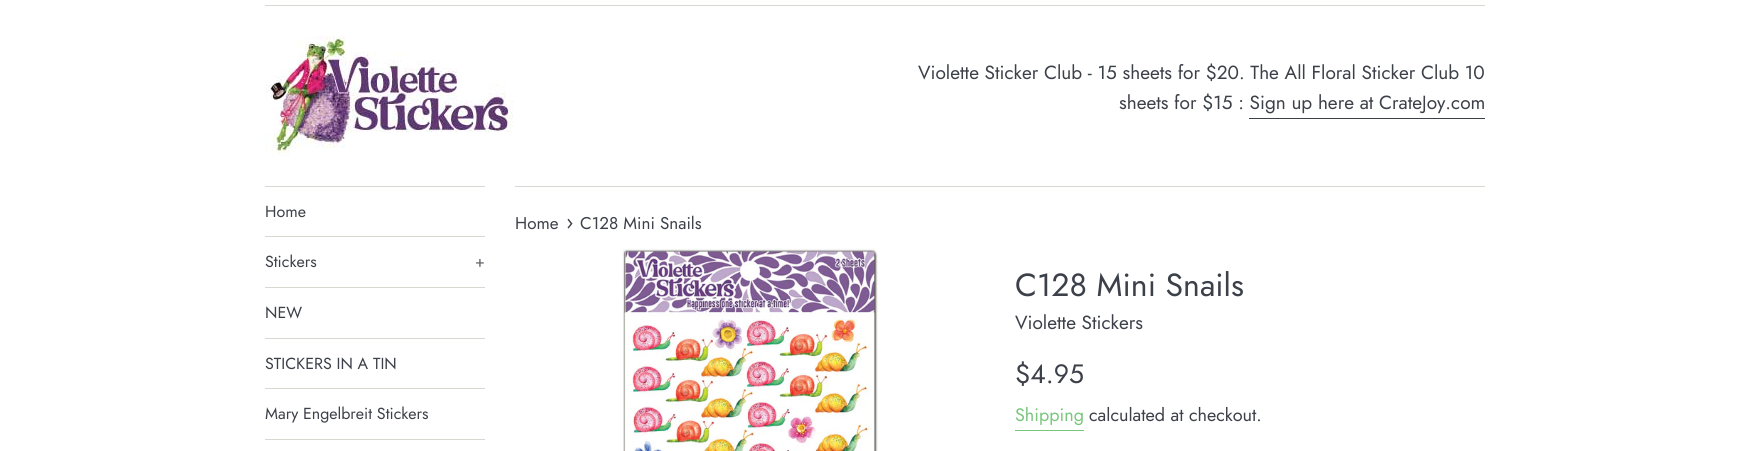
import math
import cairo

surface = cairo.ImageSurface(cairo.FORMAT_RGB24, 1750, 451)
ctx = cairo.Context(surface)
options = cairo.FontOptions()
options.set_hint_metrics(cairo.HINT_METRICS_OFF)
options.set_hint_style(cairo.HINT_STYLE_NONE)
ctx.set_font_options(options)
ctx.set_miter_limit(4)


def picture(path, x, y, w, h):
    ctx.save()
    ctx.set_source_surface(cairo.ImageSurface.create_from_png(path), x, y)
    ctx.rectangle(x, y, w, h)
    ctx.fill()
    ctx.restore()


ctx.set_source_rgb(1, 1, 1)
ctx.paint()
ctx.set_source_rgb(0.843, 0.847, 0.824)
ctx.rectangle(265, 5, 1220, 1)
ctx.fill()
picture("img1.png", 265, 36, 248, 120)
ctx.select_font_face("Jost")
ctx.set_font_size(19)
ctx.set_source_rgb(0.235, 0.251, 0.286)
ctx.move_to(918, 79)
ctx.show_text("Violette Sticker Club - 15 sheets for $20. The All Floral Sticker Club 10")
ctx.move_to(1119, 109)
ctx.show_text("sheets for $15 : Sign up here at CrateJoy.com")
ctx.rectangle(1249, 118, 236, 1)
ctx.fill()
ctx.set_source_rgb(0.843, 0.847, 0.824)
ctx.rectangle(265, 186, 220, 1)
ctx.fill()
ctx.rectangle(265, 236, 220, 1)
ctx.fill()
ctx.set_font_size(16)
ctx.set_source_rgb(0.235, 0.251, 0.286)
ctx.move_to(265, 217)
ctx.show_text("Home")
ctx.set_source_rgb(0.843, 0.847, 0.824)
ctx.rectangle(265, 287, 220, 1)
ctx.fill()
ctx.set_source_rgb(0.235, 0.251, 0.286)
ctx.move_to(265, 267)
ctx.show_text("Stickers")
ctx.set_source_rgb(0.388, 0.4, 0.427)
ctx.move_to(475, 267)
ctx.show_text("+")
ctx.set_source_rgb(0.843, 0.847, 0.824)
ctx.rectangle(265, 338, 220, 1)
ctx.fill()
ctx.set_source_rgb(0.235, 0.251, 0.286)
ctx.move_to(265, 318)
ctx.show_text("NEW")
ctx.set_source_rgb(0.843, 0.847, 0.824)
ctx.rectangle(265, 388, 220, 1)
ctx.fill()
ctx.set_source_rgb(0.235, 0.251, 0.286)
ctx.move_to(265, 369)
ctx.show_text("STICKERS IN A TIN")
ctx.set_source_rgb(0.843, 0.847, 0.824)
ctx.rectangle(265, 439, 220, 1)
ctx.fill()
ctx.set_source_rgb(0.235, 0.251, 0.286)
ctx.move_to(265, 419)
ctx.show_text("Mary Engelbreit Stickers")
ctx.set_source_rgb(0.843, 0.847, 0.824)
ctx.rectangle(515, 186, 970, 1)
ctx.fill()
ctx.set_font_size(17)
ctx.set_source_rgb(0.235, 0.251, 0.286)
ctx.move_to(515, 229)
ctx.show_text("Home")
ctx.set_font_size(21)
ctx.move_to(566, 229)
ctx.show_text("›")
ctx.set_font_size(17)
ctx.move_to(580, 229)
ctx.show_text("C128 Mini Snails")
picture("img2.png", 622, 248, 256, 203)
ctx.set_font_size(32)
ctx.move_to(1015, 296)
ctx.show_text("C128 Mini Snails")
ctx.set_font_size(19)
ctx.move_to(1015, 329)
ctx.show_text("Violette Stickers")
ctx.set_font_size(26.5)
ctx.move_to(1015, 383)
ctx.show_text("$4.95")
ctx.set_font_size(18)
ctx.set_source_rgb(0.471, 0.776, 0.486)
ctx.move_to(1015, 421)
ctx.show_text("Shipping")
ctx.rectangle(1015, 430, 69, 1)
ctx.fill()
ctx.set_source_rgb(0.235, 0.251, 0.286)
ctx.move_to(1089, 421)
ctx.show_text("calculated at checkout.")
surface.write_to_png("page.png")
